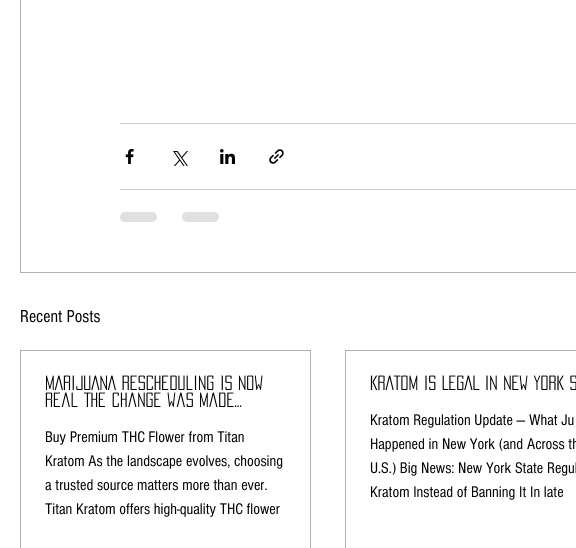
import math
import cairo

surface = cairo.ImageSurface(cairo.FORMAT_RGB24, 576, 548)
ctx = cairo.Context(surface)
options = cairo.FontOptions()
options.set_hint_metrics(cairo.HINT_METRICS_OFF)
options.set_hint_style(cairo.HINT_STYLE_NONE)
ctx.set_font_options(options)
ctx.set_miter_limit(4)


def round_rect(x, y, w, h, r):
    ctx.new_sub_path()
    for i, (u, v) in enumerate([(x + w - r, y + h - r), (x + r, y + h - r), (x + r, y + r), (x + w - r, y + r)]):
        ctx.arc(u, v, r, i * math.pi / 2, (i + 1) * math.pi / 2)
    ctx.close_path()


def picture(path, x, y, w, h):
    ctx.save()
    ctx.set_source_surface(cairo.ImageSurface.create_from_png(path), x, y)
    ctx.rectangle(x, y, w, h)
    ctx.fill()
    ctx.restore()


ctx.set_source_rgb(1, 1, 1)
ctx.paint()
ctx.rectangle(20.5, -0.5, 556, 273)
ctx.set_source_rgb(0.69, 0.69, 0.69)
ctx.set_line_width(1)
ctx.stroke()
ctx.set_source_rgb(0.8, 0.8, 0.8)
ctx.rectangle(120, 123, 456, 1)
ctx.fill()
picture("img1.png", 125, 149, 9, 15)
picture("img2.png", 173, 151, 15, 15)
picture("img3.png", 220, 149, 15, 15)
picture("img4.png", 269, 149, 15, 15)
ctx.rectangle(120, 189, 456, 1)
ctx.fill()
ctx.set_source_rgb(0.878, 0.878, 0.878)
round_rect(120, 212, 37, 10, 5)
ctx.fill()
round_rect(182, 212, 37, 10, 5)
ctx.fill()
ctx.select_font_face("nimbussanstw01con")
ctx.set_font_size(18)
ctx.set_source_rgb(0, 0, 0)
ctx.move_to(20, 322)
ctx.show_text("Recent Posts")
ctx.rectangle(20.5, 350.5, 290, 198)
ctx.set_source_rgb(0.69, 0.69, 0.69)
ctx.stroke()
ctx.select_font_face("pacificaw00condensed")
ctx.set_source_rgb(0, 0, 0)
ctx.move_to(45, 390)
ctx.show_text("MARIJUANA Rescheduling Is Now")
ctx.move_to(45, 407)
ctx.show_text("Real The change was made…")
ctx.select_font_face("nimbussanstw01con")
ctx.set_font_size(16)
ctx.move_to(45, 442)
ctx.show_text("Buy Premium THC Flower from Titan")
ctx.move_to(45, 466)
ctx.show_text("Kratom As the landscape evolves, choosing")
ctx.move_to(45, 490)
ctx.show_text("a trusted source matters more than ever.")
ctx.move_to(45, 514)
ctx.show_text("Titan Kratom offers high-quality THC flower")
ctx.rectangle(345.5, 350.5, 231, 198)
ctx.set_source_rgb(0.69, 0.69, 0.69)
ctx.stroke()
ctx.select_font_face("pacificaw00condensed")
ctx.set_font_size(18)
ctx.set_source_rgb(0, 0, 0)
ctx.move_to(370, 390)
ctx.show_text("KRATOM IS LEGAL IN NEW YORK S")
ctx.select_font_face("nimbussanstw01con")
ctx.set_font_size(16)
ctx.move_to(370, 425)
ctx.show_text("Kratom Regulation Update — What Ju")
ctx.move_to(370, 449)
ctx.show_text("Happened in New York (and Across th")
ctx.move_to(370, 473)
ctx.show_text("U.S.) Big News: New York State Regul")
ctx.move_to(370, 497)
ctx.show_text("Kratom Instead of Banning It In late")
surface.write_to_png("page.png")
